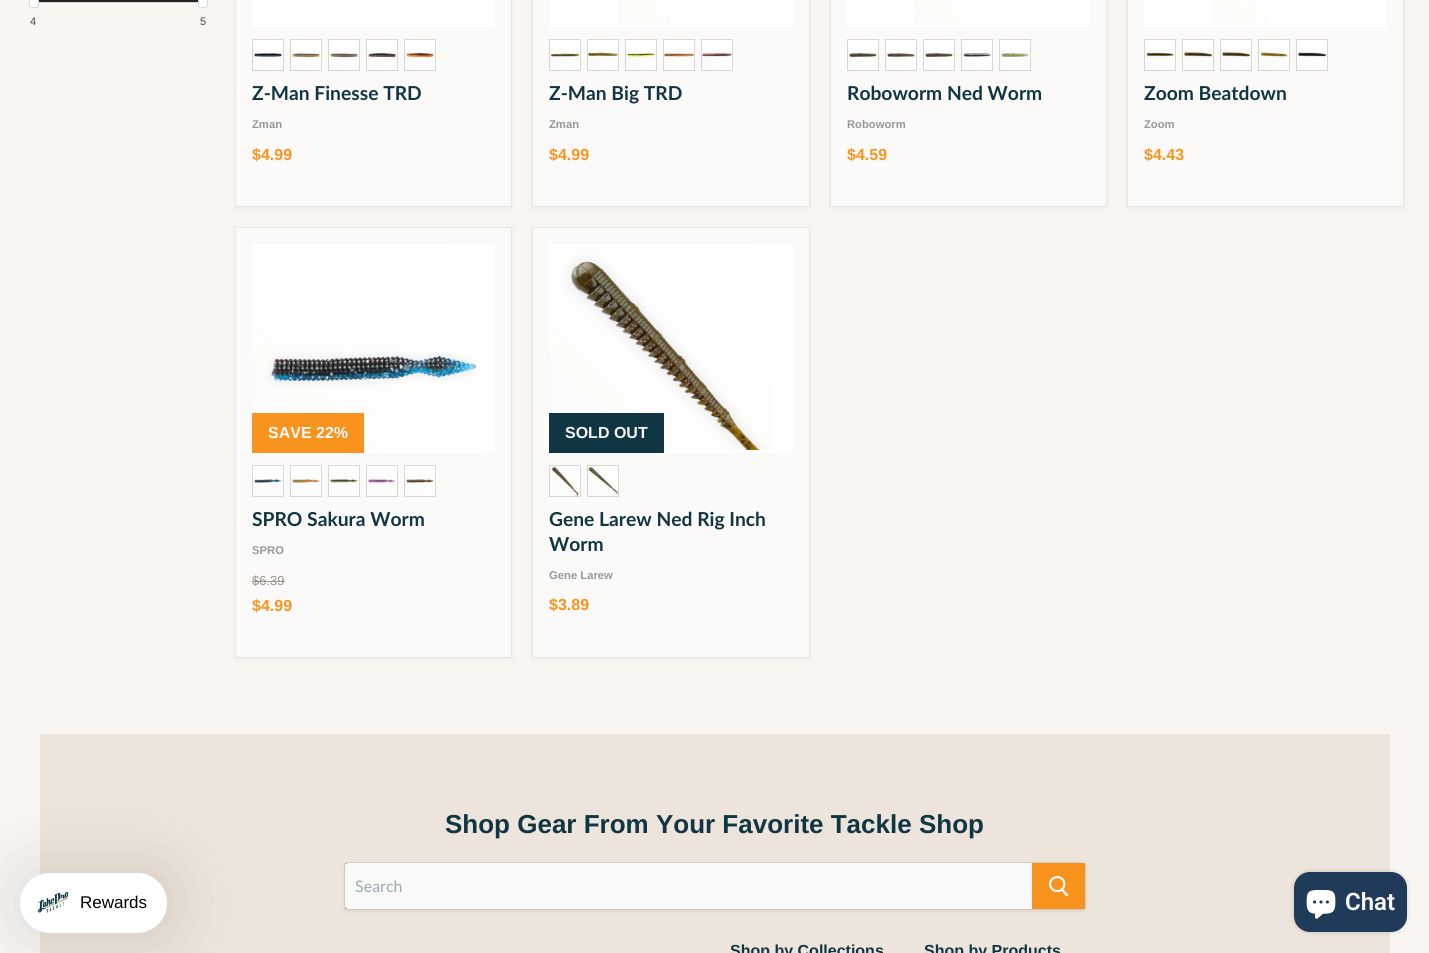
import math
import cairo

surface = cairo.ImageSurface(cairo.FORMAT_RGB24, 1429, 953)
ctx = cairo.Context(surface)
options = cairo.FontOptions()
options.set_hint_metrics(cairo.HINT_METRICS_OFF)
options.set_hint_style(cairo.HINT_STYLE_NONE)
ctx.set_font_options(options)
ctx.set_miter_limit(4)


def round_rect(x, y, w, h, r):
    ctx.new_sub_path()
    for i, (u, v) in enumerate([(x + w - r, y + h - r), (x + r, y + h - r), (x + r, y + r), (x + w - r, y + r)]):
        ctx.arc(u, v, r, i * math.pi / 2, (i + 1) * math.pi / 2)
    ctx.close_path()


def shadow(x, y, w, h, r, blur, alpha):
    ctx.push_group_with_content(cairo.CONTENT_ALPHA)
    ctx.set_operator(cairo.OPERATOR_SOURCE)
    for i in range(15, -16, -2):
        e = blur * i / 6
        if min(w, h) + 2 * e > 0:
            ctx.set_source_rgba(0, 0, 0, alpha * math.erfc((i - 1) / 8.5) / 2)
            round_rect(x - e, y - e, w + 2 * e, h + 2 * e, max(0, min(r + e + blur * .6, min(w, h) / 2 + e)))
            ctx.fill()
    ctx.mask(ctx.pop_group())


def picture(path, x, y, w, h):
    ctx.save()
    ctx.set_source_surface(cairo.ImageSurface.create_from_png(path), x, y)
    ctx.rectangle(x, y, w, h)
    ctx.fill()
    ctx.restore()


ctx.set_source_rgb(0.973, 0.961, 0.949)
ctx.paint()
ctx.rectangle(32.5, -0.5, 170, 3)
ctx.set_source_rgb(0.827, 0.827, 0.827)
ctx.set_line_width(1)
ctx.stroke()
ctx.set_source_rgb(0.141, 0.141, 0.141)
ctx.rectangle(33, 0, 169, 2)
ctx.fill()
ctx.set_source_rgb(1, 1, 1)
round_rect(29.5, -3.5, 9, 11, 2.5)
ctx.fill_preserve()
ctx.set_source_rgb(0.851, 0.851, 0.851)
ctx.stroke()
ctx.set_source_rgb(1, 1, 1)
round_rect(198.5, -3.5, 9, 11, 2.5)
ctx.fill_preserve()
ctx.set_source_rgb(0.851, 0.851, 0.851)
ctx.stroke()
ctx.select_font_face("Liberation Sans")
ctx.set_font_size(11)
ctx.set_source_rgb(0.267, 0.267, 0.267)
ctx.move_to(30, 25)
ctx.show_text("4")
ctx.move_to(200, 25)
ctx.show_text("5")
ctx.set_source_rgb(0.486, 0.478, 0.475)
shadow(235, -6, 277, 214, 0, 2, 0.11)
ctx.set_source_rgb(0.988, 0.98, 0.976)
ctx.rectangle(235.5, -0.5, 276, 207)
ctx.fill_preserve()
ctx.set_source_rgb(0.91, 0.902, 0.898)
ctx.stroke()
ctx.set_source_rgb(1, 1, 1)
ctx.rectangle(252, 0, 243, 27)
ctx.fill()
ctx.rectangle(252, 39, 32, 6)
ctx.fill()
picture("img1.png", 252, 45, 32, 26)
ctx.rectangle(252.5, 39.5, 31, 31)
ctx.set_source_rgba(0, 0, 0, 0.15)
ctx.stroke()
ctx.set_source_rgb(1, 1, 1)
ctx.rectangle(290, 39, 32, 32)
ctx.fill()
picture("img2.png", 290, 45, 31, 26)
ctx.rectangle(290.5, 39.5, 31, 31)
ctx.set_source_rgba(0, 0, 0, 0.15)
ctx.stroke()
ctx.set_source_rgb(1, 1, 1)
ctx.rectangle(328, 39, 32, 6)
ctx.fill()
picture("img3.png", 328, 45, 32, 26)
ctx.rectangle(328.5, 39.5, 31, 31)
ctx.set_source_rgba(0, 0, 0, 0.15)
ctx.stroke()
ctx.set_source_rgb(1, 1, 1)
ctx.rectangle(366, 39, 32, 32)
ctx.fill()
picture("img4.png", 366, 45, 31, 26)
ctx.rectangle(366.5, 39.5, 31, 31)
ctx.set_source_rgba(0, 0, 0, 0.15)
ctx.stroke()
ctx.set_source_rgb(1, 1, 1)
ctx.rectangle(404, 39, 32, 32)
ctx.fill()
picture("img5.png", 404, 50, 31, 21)
ctx.rectangle(404.5, 39.5, 31, 31)
ctx.set_source_rgba(0, 0, 0, 0.15)
ctx.stroke()
ctx.select_font_face("Lato", cairo.FONT_SLANT_NORMAL, cairo.FONT_WEIGHT_BOLD)
ctx.set_font_size(19.25)
ctx.set_source_rgb(0.063, 0.212, 0.263)
ctx.move_to(252, 100)
ctx.show_text("Z-Man Finesse TRD")
ctx.select_font_face("Liberation Sans", cairo.FONT_SLANT_NORMAL, cairo.FONT_WEIGHT_BOLD)
ctx.set_font_size(11.25)
ctx.set_source_rgb(0.604, 0.592, 0.604)
ctx.move_to(252, 128)
ctx.show_text("Zman")
ctx.set_font_size(16)
ctx.set_source_rgb(0.969, 0.58, 0.118)
ctx.move_to(252, 160)
ctx.show_text("$4.99")
ctx.set_source_rgb(0.486, 0.478, 0.475)
shadow(532, -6, 278, 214, 0, 2, 0.11)
ctx.set_source_rgb(0.988, 0.98, 0.976)
ctx.rectangle(532.5, -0.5, 277, 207)
ctx.fill_preserve()
ctx.set_source_rgb(0.91, 0.902, 0.898)
ctx.stroke()
ctx.set_source_rgb(1, 1, 1)
ctx.rectangle(549, 0, 244, 27)
ctx.fill()
picture("img6.png", 618, 0, 53, 24)
ctx.rectangle(549, 39, 32, 6)
ctx.fill()
picture("img7.png", 549, 45, 32, 26)
ctx.rectangle(549.5, 39.5, 31, 31)
ctx.set_source_rgba(0, 0, 0, 0.15)
ctx.stroke()
ctx.set_source_rgb(1, 1, 1)
ctx.rectangle(587, 39, 32, 10)
ctx.fill()
picture("img8.png", 587, 49, 32, 22)
ctx.rectangle(587.5, 39.5, 31, 31)
ctx.set_source_rgba(0, 0, 0, 0.15)
ctx.stroke()
ctx.set_source_rgb(1, 1, 1)
ctx.rectangle(625, 39, 32, 32)
ctx.fill()
picture("img9.png", 625, 49, 31, 22)
ctx.rectangle(625.5, 39.5, 31, 31)
ctx.set_source_rgba(0, 0, 0, 0.15)
ctx.stroke()
ctx.set_source_rgb(1, 1, 1)
ctx.rectangle(663, 39, 32, 10)
ctx.fill()
picture("img10.png", 663, 49, 32, 22)
ctx.rectangle(663.5, 39.5, 31, 31)
ctx.set_source_rgba(0, 0, 0, 0.15)
ctx.stroke()
ctx.set_source_rgb(1, 1, 1)
ctx.rectangle(701, 39, 32, 32)
ctx.fill()
picture("img11.png", 701, 45, 31, 26)
ctx.rectangle(701.5, 39.5, 31, 31)
ctx.set_source_rgba(0, 0, 0, 0.15)
ctx.stroke()
ctx.select_font_face("Lato", cairo.FONT_SLANT_NORMAL, cairo.FONT_WEIGHT_BOLD)
ctx.set_font_size(19.25)
ctx.set_source_rgb(0.063, 0.212, 0.263)
ctx.move_to(549, 100)
ctx.show_text("Z-Man Big TRD")
ctx.select_font_face("Liberation Sans", cairo.FONT_SLANT_NORMAL, cairo.FONT_WEIGHT_BOLD)
ctx.set_font_size(11.25)
ctx.set_source_rgb(0.604, 0.592, 0.604)
ctx.move_to(549, 128)
ctx.show_text("Zman")
ctx.set_font_size(16)
ctx.set_source_rgb(0.969, 0.58, 0.118)
ctx.move_to(549, 160)
ctx.show_text("$4.99")
ctx.set_source_rgb(0.486, 0.478, 0.475)
shadow(830, -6, 277, 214, 0, 2, 0.11)
ctx.set_source_rgb(0.988, 0.98, 0.976)
ctx.rectangle(830.5, -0.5, 276, 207)
ctx.fill_preserve()
ctx.set_source_rgb(0.91, 0.902, 0.898)
ctx.stroke()
ctx.set_source_rgb(1, 1, 1)
ctx.rectangle(847, 0, 243, 27)
ctx.fill()
picture("img12.png", 915, 0, 54, 24)
ctx.rectangle(847, 39, 32, 6)
ctx.fill()
picture("img13.png", 847, 45, 32, 26)
ctx.rectangle(847.5, 39.5, 31, 31)
ctx.set_source_rgba(0, 0, 0, 0.15)
ctx.stroke()
ctx.set_source_rgb(1, 1, 1)
ctx.rectangle(885, 39, 32, 6)
ctx.fill()
picture("img14.png", 885, 45, 32, 26)
ctx.rectangle(885.5, 39.5, 31, 31)
ctx.set_source_rgba(0, 0, 0, 0.15)
ctx.stroke()
ctx.set_source_rgb(1, 1, 1)
ctx.rectangle(923, 39, 32, 6)
ctx.fill()
picture("img13.png", 923, 45, 32, 26)
ctx.rectangle(923.5, 39.5, 31, 31)
ctx.set_source_rgba(0, 0, 0, 0.15)
ctx.stroke()
ctx.set_source_rgb(1, 1, 1)
ctx.rectangle(961, 39, 32, 6)
ctx.fill()
picture("img15.png", 961, 45, 32, 26)
ctx.rectangle(961.5, 39.5, 31, 31)
ctx.set_source_rgba(0, 0, 0, 0.15)
ctx.stroke()
ctx.set_source_rgb(1, 1, 1)
ctx.rectangle(999, 39, 32, 32)
ctx.fill()
picture("img16.png", 999, 45, 30, 26)
ctx.rectangle(999.5, 39.5, 31, 31)
ctx.set_source_rgba(0, 0, 0, 0.15)
ctx.stroke()
ctx.select_font_face("Lato", cairo.FONT_SLANT_NORMAL, cairo.FONT_WEIGHT_BOLD)
ctx.set_font_size(19.25)
ctx.set_source_rgb(0.063, 0.212, 0.263)
ctx.move_to(847, 100)
ctx.show_text("Roboworm Ned Worm")
ctx.select_font_face("Liberation Sans", cairo.FONT_SLANT_NORMAL, cairo.FONT_WEIGHT_BOLD)
ctx.set_font_size(11.25)
ctx.set_source_rgb(0.604, 0.592, 0.604)
ctx.move_to(847, 128)
ctx.show_text("Roboworm")
ctx.set_font_size(16)
ctx.set_source_rgb(0.969, 0.58, 0.118)
ctx.move_to(847, 160)
ctx.show_text("$4.59")
ctx.set_source_rgb(0.486, 0.478, 0.475)
shadow(1127, -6, 277, 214, 0, 2, 0.11)
ctx.set_source_rgb(0.988, 0.98, 0.976)
ctx.rectangle(1127.5, -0.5, 276, 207)
ctx.fill_preserve()
ctx.set_source_rgb(0.91, 0.902, 0.898)
ctx.stroke()
ctx.set_source_rgb(1, 1, 1)
ctx.rectangle(1144, 0, 243, 27)
ctx.fill()
picture("img12.png", 1212, 0, 54, 24)
ctx.rectangle(1144, 39, 32, 32)
ctx.fill()
picture("img17.png", 1144, 45, 31, 26)
ctx.rectangle(1144.5, 39.5, 31, 31)
ctx.set_source_rgba(0, 0, 0, 0.15)
ctx.stroke()
ctx.set_source_rgb(1, 1, 1)
ctx.rectangle(1182, 39, 32, 6)
ctx.fill()
picture("img18.png", 1182, 45, 32, 26)
ctx.rectangle(1182.5, 39.5, 31, 31)
ctx.set_source_rgba(0, 0, 0, 0.15)
ctx.stroke()
ctx.set_source_rgb(1, 1, 1)
ctx.rectangle(1220, 39, 32, 6)
ctx.fill()
picture("img18.png", 1220, 45, 32, 26)
ctx.rectangle(1220.5, 39.5, 31, 31)
ctx.set_source_rgba(0, 0, 0, 0.15)
ctx.stroke()
ctx.set_source_rgb(1, 1, 1)
ctx.rectangle(1258, 39, 32, 32)
ctx.fill()
picture("img19.png", 1258, 48, 31, 23)
ctx.rectangle(1258.5, 39.5, 31, 31)
ctx.set_source_rgba(0, 0, 0, 0.15)
ctx.stroke()
ctx.set_source_rgb(1, 1, 1)
ctx.rectangle(1296, 39, 32, 6)
ctx.fill()
picture("img20.png", 1296, 45, 32, 26)
ctx.rectangle(1296.5, 39.5, 31, 31)
ctx.set_source_rgba(0, 0, 0, 0.15)
ctx.stroke()
ctx.select_font_face("Lato", cairo.FONT_SLANT_NORMAL, cairo.FONT_WEIGHT_BOLD)
ctx.set_font_size(19.25)
ctx.set_source_rgb(0.063, 0.212, 0.263)
ctx.move_to(1144, 100)
ctx.show_text("Zoom Beatdown")
ctx.select_font_face("Liberation Sans", cairo.FONT_SLANT_NORMAL, cairo.FONT_WEIGHT_BOLD)
ctx.set_font_size(11.25)
ctx.set_source_rgb(0.604, 0.592, 0.604)
ctx.move_to(1144, 128)
ctx.show_text("Zoom")
ctx.set_font_size(16)
ctx.set_source_rgb(0.969, 0.58, 0.118)
ctx.move_to(1144, 160)
ctx.show_text("$4.43")
ctx.set_source_rgb(0.486, 0.478, 0.475)
shadow(235, 228, 277, 431, 0, 2, 0.11)
ctx.set_source_rgb(0.988, 0.98, 0.976)
ctx.rectangle(235.5, 227.5, 276, 430)
ctx.fill_preserve()
ctx.set_source_rgb(0.91, 0.902, 0.898)
ctx.stroke()
ctx.set_source_rgb(1, 1, 1)
ctx.rectangle(252, 244, 243, 209)
ctx.fill()
picture("img21.png", 252, 247, 228, 203)
ctx.set_source_rgb(0.969, 0.58, 0.118)
ctx.rectangle(252, 413, 112, 40)
ctx.fill()
ctx.set_source_rgb(0.976, 0.976, 0.973)
ctx.move_to(268, 438)
ctx.show_text("SAVE 22%")
ctx.set_source_rgb(1, 1, 1)
ctx.rectangle(252, 465, 32, 32)
ctx.fill()
picture("img22.png", 252, 478, 31, 19)
ctx.rectangle(252.5, 465.5, 31, 31)
ctx.set_source_rgba(0, 0, 0, 0.15)
ctx.stroke()
ctx.set_source_rgb(1, 1, 1)
ctx.rectangle(290, 465, 32, 32)
ctx.fill()
picture("img23.png", 290, 476, 31, 21)
ctx.rectangle(290.5, 465.5, 31, 31)
ctx.set_source_rgba(0, 0, 0, 0.15)
ctx.stroke()
ctx.set_source_rgb(1, 1, 1)
ctx.rectangle(328, 465, 32, 32)
ctx.fill()
picture("img24.png", 328, 471, 31, 26)
ctx.rectangle(328.5, 465.5, 31, 31)
ctx.set_source_rgba(0, 0, 0, 0.15)
ctx.stroke()
ctx.set_source_rgb(1, 1, 1)
ctx.rectangle(366, 465, 32, 32)
ctx.fill()
picture("img25.png", 366, 471, 31, 26)
ctx.rectangle(366.5, 465.5, 31, 31)
ctx.set_source_rgba(0, 0, 0, 0.15)
ctx.stroke()
ctx.set_source_rgb(1, 1, 1)
ctx.rectangle(404, 465, 32, 6)
ctx.fill()
picture("img26.png", 404, 471, 32, 26)
ctx.rectangle(404.5, 465.5, 31, 31)
ctx.set_source_rgba(0, 0, 0, 0.15)
ctx.stroke()
ctx.select_font_face("Lato", cairo.FONT_SLANT_NORMAL, cairo.FONT_WEIGHT_BOLD)
ctx.set_font_size(19.25)
ctx.set_source_rgb(0.063, 0.212, 0.263)
ctx.move_to(252, 526)
ctx.show_text("SPRO Sakura Worm")
ctx.select_font_face("Liberation Sans", cairo.FONT_SLANT_NORMAL, cairo.FONT_WEIGHT_BOLD)
ctx.set_font_size(11.25)
ctx.set_source_rgb(0.604, 0.592, 0.604)
ctx.move_to(252, 554)
ctx.show_text("SPRO")
ctx.select_font_face("Liberation Sans")
ctx.set_font_size(13)
ctx.set_source_rgb(0.62, 0.565, 0.537)
ctx.move_to(252, 585)
ctx.show_text("$6.39")
ctx.rectangle(252, 581, 33, 1)
ctx.fill()
ctx.select_font_face("Liberation Sans", cairo.FONT_SLANT_NORMAL, cairo.FONT_WEIGHT_BOLD)
ctx.set_font_size(16)
ctx.set_source_rgb(0.969, 0.58, 0.118)
ctx.move_to(252, 611)
ctx.show_text("$4.99")
ctx.set_source_rgb(0.486, 0.478, 0.475)
shadow(532, 228, 278, 431, 0, 2, 0.11)
ctx.set_source_rgb(0.988, 0.98, 0.976)
ctx.rectangle(532.5, 227.5, 277, 430)
ctx.fill_preserve()
ctx.set_source_rgb(0.91, 0.902, 0.898)
ctx.stroke()
ctx.set_source_rgb(1, 1, 1)
ctx.rectangle(549, 244, 244, 209)
ctx.fill()
picture("img27.png", 549, 247, 224, 203)
ctx.set_source_rgb(0.063, 0.212, 0.263)
ctx.rectangle(549, 413, 115, 40)
ctx.fill()
ctx.set_source_rgb(0.973, 0.961, 0.949)
ctx.move_to(565, 438)
ctx.show_text("SOLD OUT")
picture("img28.png", 549, 465, 32, 32)
ctx.rectangle(549.5, 465.5, 31, 31)
ctx.set_source_rgba(0, 0, 0, 0.15)
ctx.stroke()
picture("img29.png", 587, 465, 32, 32)
ctx.rectangle(587.5, 465.5, 31, 31)
ctx.stroke()
ctx.select_font_face("Lato", cairo.FONT_SLANT_NORMAL, cairo.FONT_WEIGHT_BOLD)
ctx.set_font_size(19.25)
ctx.set_source_rgb(0.063, 0.212, 0.263)
ctx.move_to(549, 526)
ctx.show_text("Gene Larew Ned Rig Inch")
ctx.move_to(549, 551)
ctx.show_text("Worm")
ctx.select_font_face("Liberation Sans", cairo.FONT_SLANT_NORMAL, cairo.FONT_WEIGHT_BOLD)
ctx.set_font_size(11.25)
ctx.set_source_rgb(0.604, 0.592, 0.604)
ctx.move_to(549, 579)
ctx.show_text("Gene Larew")
ctx.set_font_size(16)
ctx.set_source_rgb(0.969, 0.58, 0.118)
ctx.move_to(549, 610)
ctx.show_text("$3.89")
ctx.set_source_rgb(0.929, 0.894, 0.859)
ctx.rectangle(40, 734, 1350, 219)
ctx.fill()
ctx.set_source_rgb(0, 0, 0)
shadow(20, 873, 147, 60, 30, 40, 0.12)
ctx.set_source_rgb(1, 1, 1)
round_rect(20, 873, 147, 60, 30)
ctx.fill()
picture("img30.png", 38, 892, 31, 21)
ctx.select_font_face("Liberation Sans")
ctx.set_font_size(17)
ctx.set_source_rgb(0, 0, 0)
ctx.move_to(80, 908)
ctx.show_text("Rewards")
ctx.select_font_face("Liberation Sans", cairo.FONT_SLANT_NORMAL, cairo.FONT_WEIGHT_BOLD)
ctx.set_font_size(26)
ctx.set_source_rgb(0.063, 0.212, 0.263)
ctx.move_to(445, 833)
ctx.show_text("Shop Gear From Your Favorite Tackle Shop")
ctx.set_source_rgb(0.969, 0.58, 0.118)
ctx.rectangle(345, 863, 740, 46)
ctx.fill()
ctx.set_source_rgb(0.486, 0.478, 0.475)
shadow(344, 864, 742, 48, 4, 1.5, 0.11)
round_rect(344.5, 862.5, 741, 47, 3.5)
ctx.set_source_rgba(0.486, 0.478, 0.475, 0.2)
ctx.stroke()
ctx.set_source_rgb(0.976, 0.976, 0.973)
ctx.new_path()
ctx.move_to(348, 863)
ctx.line_to(1032, 863)
ctx.line_to(1032, 909)
ctx.line_to(348, 909)
ctx.curve_to(346.5, 909, 345, 907.5, 345, 906)
ctx.line_to(345, 866)
ctx.curve_to(345, 864.5, 346.5, 863, 348, 863)
ctx.close_path()
ctx.fill()
ctx.select_font_face("Lato")
ctx.set_font_size(16)
ctx.set_source_rgb(0.612, 0.671, 0.69)
ctx.move_to(355, 892)
ctx.show_text("Search")
ctx.set_source_rgb(0.969, 0.58, 0.118)
ctx.new_path()
ctx.move_to(1032.5, 863.5)
ctx.line_to(1082, 863.5)
ctx.curve_to(1083.5, 863.5, 1084.5, 864.5, 1084.5, 866)
ctx.line_to(1084.5, 906)
ctx.curve_to(1084.5, 907.5, 1083.5, 908.5, 1082, 908.5)
ctx.line_to(1032.5, 908.5)
ctx.close_path()
ctx.fill_preserve()
ctx.stroke()
picture("img31.png", 1049, 876, 20, 21)
ctx.select_font_face("Liberation Sans", cairo.FONT_SLANT_NORMAL, cairo.FONT_WEIGHT_BOLD)
ctx.set_source_rgb(0.063, 0.212, 0.263)
ctx.move_to(730, 956)
ctx.show_text("Shop by Collections")
ctx.move_to(924, 956)
ctx.show_text("Shop by Products")
ctx.set_source_rgb(0, 0, 0)
shadow(1294, 872, 113, 60, 16, 2.5, 0.15)
ctx.set_source_rgb(0.125, 0.227, 0.349)
round_rect(1294, 872, 113, 60, 16)
ctx.fill()
picture("img32.png", 1306, 890, 30, 29)
ctx.select_font_face("Roboto SemiBold")
ctx.set_font_size(24)
ctx.set_source_rgb(1, 1, 1)
ctx.move_to(1345, 910)
ctx.show_text("Chat")
surface.write_to_png("page.png")
